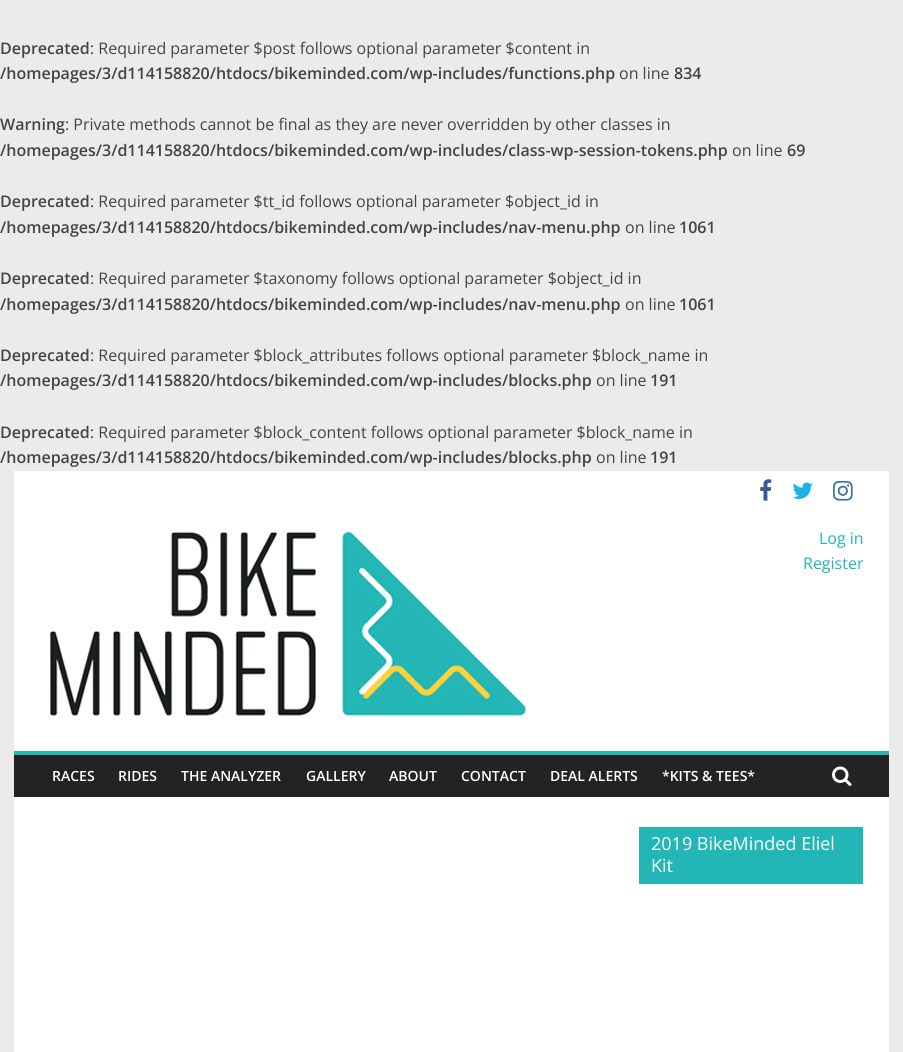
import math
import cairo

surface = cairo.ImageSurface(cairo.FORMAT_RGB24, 903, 1052)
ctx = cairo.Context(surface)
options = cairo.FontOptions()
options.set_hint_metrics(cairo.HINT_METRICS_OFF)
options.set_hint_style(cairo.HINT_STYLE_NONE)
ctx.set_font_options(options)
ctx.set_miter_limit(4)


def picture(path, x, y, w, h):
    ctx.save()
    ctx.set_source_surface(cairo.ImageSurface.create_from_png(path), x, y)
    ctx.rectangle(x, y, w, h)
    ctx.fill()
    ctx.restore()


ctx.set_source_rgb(0.918, 0.918, 0.918)
ctx.paint()
ctx.select_font_face("Open Sans SemiBold")
ctx.set_font_size(16)
ctx.set_source_rgb(0.267, 0.267, 0.267)
ctx.move_to(0, 54)
ctx.show_text("Deprecated")
ctx.select_font_face("Open Sans")
ctx.move_to(90, 54)
ctx.show_text(": Required parameter $post follows optional parameter $content in")
ctx.select_font_face("Open Sans SemiBold")
ctx.move_to(0, 79)
ctx.show_text("/homepages/3/d114158820/htdocs/bikeminded.com/wp-includes/functions.php")
ctx.select_font_face("Open Sans")
ctx.move_to(619, 79)
ctx.show_text("on line")
ctx.select_font_face("Open Sans SemiBold")
ctx.move_to(674, 79)
ctx.show_text("834")
ctx.move_to(0, 130)
ctx.show_text("Warning")
ctx.select_font_face("Open Sans")
ctx.move_to(65, 130)
ctx.show_text(": Private methods cannot be final as they are never overridden by other classes in")
ctx.select_font_face("Open Sans SemiBold")
ctx.move_to(0, 156)
ctx.show_text("/homepages/3/d114158820/htdocs/bikeminded.com/wp-includes/class-wp-session-tokens.php")
ctx.select_font_face("Open Sans")
ctx.move_to(732, 156)
ctx.show_text("on line")
ctx.select_font_face("Open Sans SemiBold")
ctx.move_to(787, 156)
ctx.show_text("69")
ctx.move_to(0, 207)
ctx.show_text("Deprecated")
ctx.select_font_face("Open Sans")
ctx.move_to(90, 207)
ctx.show_text(": Required parameter $tt_id follows optional parameter $object_id in")
ctx.select_font_face("Open Sans SemiBold")
ctx.move_to(0, 233)
ctx.show_text("/homepages/3/d114158820/htdocs/bikeminded.com/wp-includes/nav-menu.php")
ctx.select_font_face("Open Sans")
ctx.move_to(625, 233)
ctx.show_text("on line")
ctx.select_font_face("Open Sans SemiBold")
ctx.move_to(679, 233)
ctx.show_text("1061")
ctx.move_to(0, 284)
ctx.show_text("Deprecated")
ctx.select_font_face("Open Sans")
ctx.move_to(90, 284)
ctx.show_text(": Required parameter $taxonomy follows optional parameter $object_id in")
ctx.select_font_face("Open Sans SemiBold")
ctx.move_to(0, 310)
ctx.show_text("/homepages/3/d114158820/htdocs/bikeminded.com/wp-includes/nav-menu.php")
ctx.select_font_face("Open Sans")
ctx.move_to(625, 310)
ctx.show_text("on line")
ctx.select_font_face("Open Sans SemiBold")
ctx.move_to(679, 310)
ctx.show_text("1061")
ctx.move_to(0, 361)
ctx.show_text("Deprecated")
ctx.select_font_face("Open Sans")
ctx.move_to(90, 361)
ctx.show_text(": Required parameter $block_attributes follows optional parameter $block_name in")
ctx.select_font_face("Open Sans SemiBold")
ctx.move_to(0, 386)
ctx.show_text("/homepages/3/d114158820/htdocs/bikeminded.com/wp-includes/blocks.php")
ctx.select_font_face("Open Sans")
ctx.move_to(596, 386)
ctx.show_text("on line")
ctx.select_font_face("Open Sans SemiBold")
ctx.move_to(650, 386)
ctx.show_text("191")
ctx.move_to(0, 438)
ctx.show_text("Deprecated")
ctx.select_font_face("Open Sans")
ctx.move_to(90, 438)
ctx.show_text(": Required parameter $block_content follows optional parameter $block_name in")
ctx.select_font_face("Open Sans SemiBold")
ctx.move_to(0, 463)
ctx.show_text("/homepages/3/d114158820/htdocs/bikeminded.com/wp-includes/blocks.php")
ctx.select_font_face("Open Sans")
ctx.move_to(596, 463)
ctx.show_text("on line")
ctx.select_font_face("Open Sans SemiBold")
ctx.move_to(650, 463)
ctx.show_text("191")
ctx.set_source_rgb(1, 1, 1)
ctx.rectangle(14, 471, 875, 280)
ctx.fill()
picture("img1.png", 760, 479, 12, 22)
picture("img2.png", 792, 482, 21, 17)
picture("img3.png", 833, 480, 20, 21)
picture("img4.png", 50, 531, 476, 185)
ctx.select_font_face("Open Sans")
ctx.set_source_rgb(0.137, 0.714, 0.714)
ctx.move_to(819, 544)
ctx.show_text("Log in")
ctx.move_to(803, 569)
ctx.show_text("Register")
ctx.set_source_rgb(0.137, 0.137, 0.137)
ctx.rectangle(14, 755, 875, 42)
ctx.fill()
ctx.set_source_rgb(0.137, 0.714, 0.714)
ctx.rectangle(14, 751, 875, 4)
ctx.fill()
ctx.select_font_face("Open Sans SemiBold")
ctx.set_font_size(14)
ctx.set_source_rgb(1, 1, 1)
ctx.move_to(52, 781)
ctx.show_text("RACES")
ctx.move_to(118, 781)
ctx.show_text("RIDES")
ctx.move_to(181, 781)
ctx.show_text("THE ANALYZER")
ctx.move_to(306, 781)
ctx.show_text("GALLERY")
ctx.move_to(389, 781)
ctx.show_text("ABOUT")
ctx.move_to(461, 781)
ctx.show_text("CONTACT")
ctx.move_to(550, 781)
ctx.show_text("DEAL ALERTS")
ctx.move_to(662, 781)
ctx.show_text("*KITS & TEES*")
picture("img5.png", 832, 766, 20, 20)
ctx.rectangle(14, 797, 875, 255)
ctx.fill()
ctx.set_source_rgb(0.137, 0.714, 0.714)
ctx.rectangle(639, 827, 224, 57)
ctx.fill()
ctx.select_font_face("Open Sans")
ctx.set_font_size(18)
ctx.set_source_rgb(1, 1, 1)
ctx.move_to(651, 850)
ctx.show_text("2019 BikeMinded Eliel")
ctx.move_to(651, 872)
ctx.show_text("Kit")
surface.write_to_png("page.png")
